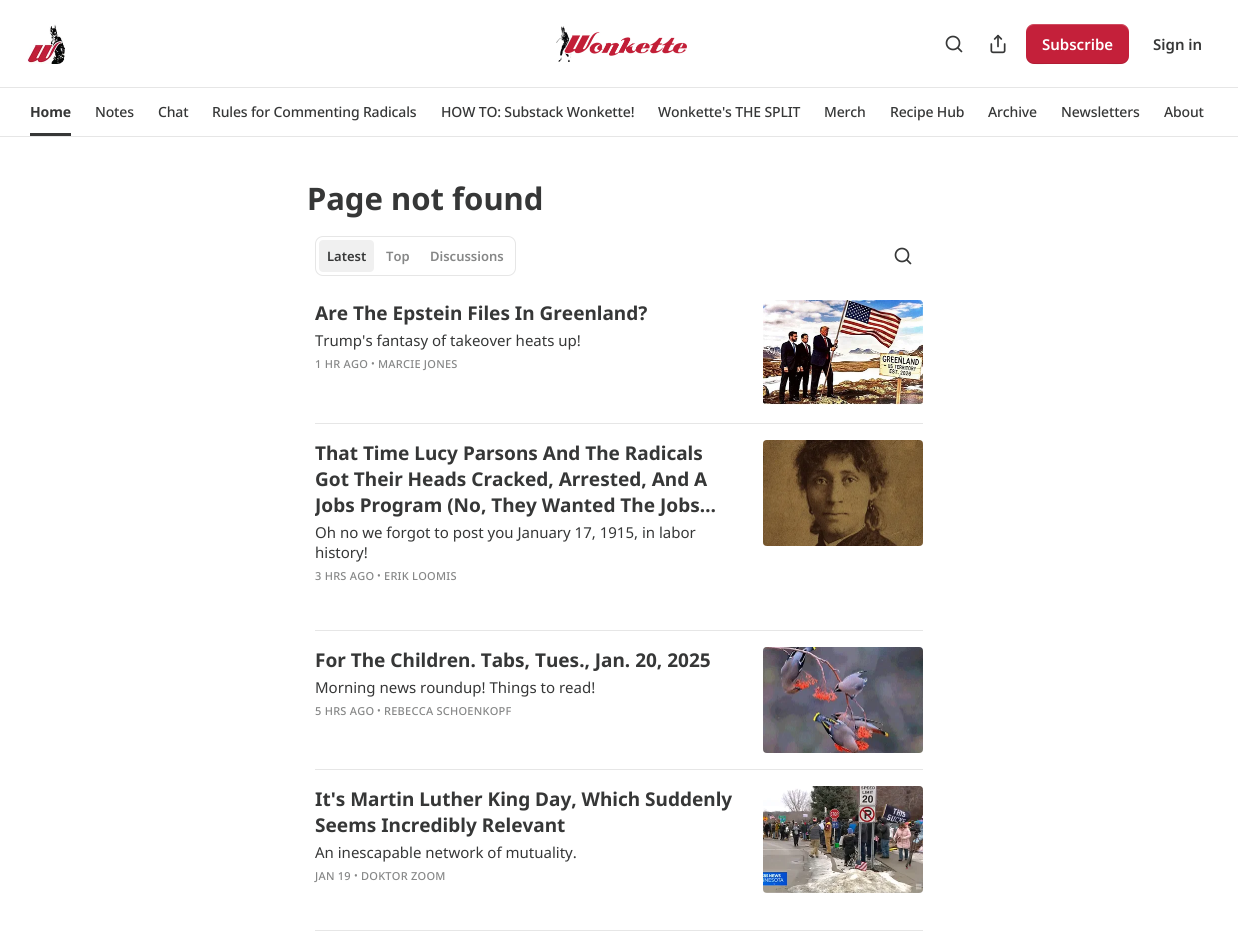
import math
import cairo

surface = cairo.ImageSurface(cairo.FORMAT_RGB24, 1238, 945)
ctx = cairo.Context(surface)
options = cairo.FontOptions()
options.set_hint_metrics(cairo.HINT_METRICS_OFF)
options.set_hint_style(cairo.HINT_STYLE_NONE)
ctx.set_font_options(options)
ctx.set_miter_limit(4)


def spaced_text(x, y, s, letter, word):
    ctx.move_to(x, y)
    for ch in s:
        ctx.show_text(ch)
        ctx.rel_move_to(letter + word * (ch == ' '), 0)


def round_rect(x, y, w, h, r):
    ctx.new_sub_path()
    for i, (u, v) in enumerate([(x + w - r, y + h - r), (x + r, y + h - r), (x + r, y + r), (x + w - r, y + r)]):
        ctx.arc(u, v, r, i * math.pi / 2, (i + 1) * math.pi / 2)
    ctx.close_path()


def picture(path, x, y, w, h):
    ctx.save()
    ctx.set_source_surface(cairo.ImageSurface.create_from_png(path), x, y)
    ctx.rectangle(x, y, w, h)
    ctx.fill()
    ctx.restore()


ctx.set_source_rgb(1, 1, 1)
ctx.paint()
picture("img1.png", 27, 24, 38, 40)
picture("img2.png", 556, 26, 131, 36)
ctx.arc(953, 43, 6.5, 0, 2 * math.pi)
ctx.set_source_rgb(0.212, 0.216, 0.216)
ctx.set_line_width(1.7)
ctx.stroke()
ctx.new_path()
ctx.move_to(961.5, 51.5)
ctx.line_to(958, 48)
ctx.set_line_cap(cairo.LINE_CAP_ROUND)
ctx.set_line_join(cairo.LINE_JOIN_ROUND)
ctx.stroke()
picture("img3.png", 990, 34, 16, 20)
ctx.set_source_rgb(0.769, 0.125, 0.227)
round_rect(1026, 24, 103, 40, 8)
ctx.fill()
ctx.set_source_rgba(0, 0, 0, 0.1)
ctx.new_path()
ctx.move_to(1026, 55)
ctx.curve_to(1026, 67, 1040, 64, 1048, 64)
ctx.line_to(1106, 64)
ctx.curve_to(1115, 64, 1129, 67, 1129, 55)
ctx.curve_to(1129, 59, 1125, 63, 1121, 63)
ctx.line_to(1034, 63)
ctx.curve_to(1030, 63, 1026, 59, 1026, 55)
ctx.close_path()
ctx.fill()
ctx.set_source_rgba(1, 1, 1, 0.2)
ctx.new_path()
ctx.move_to(1034, 25)
ctx.line_to(1121, 25)
ctx.curve_to(1125, 25, 1129, 29, 1129, 33)
ctx.curve_to(1129, 21, 1115, 24, 1106, 24)
ctx.line_to(1048, 24)
ctx.curve_to(1040, 24, 1026, 21, 1026, 33)
ctx.curve_to(1026, 29, 1030, 25, 1034, 25)
ctx.close_path()
ctx.fill()
ctx.select_font_face("Noto Sans SemiBold")
ctx.set_font_size(15)
ctx.set_source_rgb(1, 1, 1)
ctx.move_to(1042, 50)
ctx.show_text("Subscribe")
ctx.set_source_rgb(0.212, 0.216, 0.216)
ctx.move_to(1153, 50)
ctx.show_text("Sign in")
ctx.set_source_rgb(0.902, 0.902, 0.902)
ctx.rectangle(0, 87, 1238, 1)
ctx.fill()
ctx.rectangle(0, 136, 1238, 1)
ctx.fill()
ctx.set_source_rgb(0.212, 0.216, 0.216)
ctx.rectangle(30, 133, 41, 3)
ctx.fill()
ctx.select_font_face("Noto Sans", cairo.FONT_SLANT_NORMAL, cairo.FONT_WEIGHT_BOLD)
ctx.set_font_size(14)
spaced_text(30, 117, "Home", -0.15, 0)
ctx.select_font_face("Noto Sans Medium")
spaced_text(95, 117, "Notes", -0.15, 0)
spaced_text(158, 117, "Chat", -0.15, 0)
spaced_text(212, 117, "Rules for Commenting Radicals", -0.15, 0)
spaced_text(441, 117, "HOW TO: Substack Wonkette!", -0.15, 0)
spaced_text(658, 117, "Wonkette's THE SPLIT", -0.15, 0)
spaced_text(824, 117, "Merch", -0.15, 0)
spaced_text(890, 117, "Recipe Hub", -0.15, 0)
spaced_text(988, 117, "Archive", -0.15, 0)
spaced_text(1061, 117, "Newsletters", -0.15, 0)
spaced_text(1164, 117, "About", -0.15, 0)
ctx.select_font_face("Noto Sans", cairo.FONT_SLANT_NORMAL, cairo.FONT_WEIGHT_BOLD)
ctx.set_font_size(31)
ctx.move_to(307, 210)
ctx.show_text("Page not found")
round_rect(315.5, 236.5, 200, 39, 7.5)
ctx.set_source_rgb(0.902, 0.902, 0.902)
ctx.set_line_width(1)
ctx.set_line_cap(cairo.LINE_CAP_BUTT)
ctx.set_line_join(cairo.LINE_JOIN_MITER)
ctx.stroke()
ctx.set_source_rgb(0.941, 0.941, 0.941)
round_rect(319, 240, 55, 32, 4)
ctx.fill()
ctx.select_font_face("Noto Sans SemiBold")
ctx.set_font_size(13)
ctx.set_source_rgb(0.212, 0.216, 0.216)
ctx.move_to(327, 261)
ctx.show_text("Latest")
ctx.set_source_rgb(0.525, 0.529, 0.529)
ctx.move_to(386, 261)
ctx.show_text("Top")
ctx.move_to(430, 261)
ctx.show_text("Discussions")
ctx.new_path()
ctx.arc(902, 255, 6.5, 0, 2 * math.pi)
ctx.set_source_rgb(0.212, 0.216, 0.216)
ctx.set_line_width(1.7)
ctx.stroke()
ctx.new_path()
ctx.move_to(910.5, 263.5)
ctx.line_to(907, 260)
ctx.set_line_cap(cairo.LINE_CAP_ROUND)
ctx.set_line_join(cairo.LINE_JOIN_ROUND)
ctx.stroke()
ctx.select_font_face("Noto Sans", cairo.FONT_SLANT_NORMAL, cairo.FONT_WEIGHT_BOLD)
ctx.set_font_size(19)
ctx.move_to(315, 320)
ctx.show_text("Are The Epstein Files In Greenland?")
ctx.select_font_face("Noto Sans")
ctx.set_font_size(15)
ctx.move_to(315, 346)
ctx.show_text("Trump's fantasy of takeover heats up!")
ctx.select_font_face("Noto Sans Medium")
ctx.set_font_size(11)
ctx.set_source_rgb(0.525, 0.529, 0.529)
spaced_text(315, 368, "1 HR AGO", 0.25, 0)
ctx.select_font_face("Noto Sans")
ctx.set_font_size(10)
spaced_text(371, 367, "•", 0.25, 0)
ctx.select_font_face("Noto Sans Medium")
ctx.set_font_size(11)
spaced_text(378, 368, "MARCIE JONES", 0.25, 0)
picture("img4.png", 763, 300, 160, 105)
ctx.set_source_rgb(0.902, 0.902, 0.902)
ctx.rectangle(315, 423, 608, 1)
ctx.fill()
ctx.select_font_face("Noto Sans", cairo.FONT_SLANT_NORMAL, cairo.FONT_WEIGHT_BOLD)
ctx.set_font_size(19)
ctx.set_source_rgb(0.212, 0.216, 0.216)
ctx.move_to(315, 460)
ctx.show_text("That Time Lucy Parsons And The Radicals")
ctx.move_to(315, 486)
ctx.show_text("Got Their Heads Cracked, Arrested, And A")
ctx.save()
ctx.rectangle(315, 440, 424, 78)
ctx.clip()
ctx.move_to(315, 512)
ctx.show_text("Jobs Program (No, They Wanted The Jobs…")
ctx.restore()
ctx.select_font_face("Noto Sans")
ctx.set_font_size(15)
ctx.move_to(315, 538)
ctx.show_text("Oh no we forgot to post you January 17, 1915, in labor")
ctx.move_to(315, 558)
ctx.show_text("history!")
ctx.select_font_face("Noto Sans Medium")
ctx.set_font_size(11)
ctx.set_source_rgb(0.525, 0.529, 0.529)
spaced_text(315, 580, "3 HRS AGO", 0.25, 0)
ctx.select_font_face("Noto Sans")
ctx.set_font_size(10)
spaced_text(377, 579, "•", 0.25, 0)
ctx.select_font_face("Noto Sans Medium")
ctx.set_font_size(11)
spaced_text(384, 580, "ERIK LOOMIS", 0.25, 0)
picture("img5.png", 763, 440, 160, 106)
ctx.set_source_rgb(0.902, 0.902, 0.902)
ctx.rectangle(315, 630, 608, 1)
ctx.fill()
ctx.select_font_face("Noto Sans", cairo.FONT_SLANT_NORMAL, cairo.FONT_WEIGHT_BOLD)
ctx.set_font_size(19)
ctx.set_source_rgb(0.212, 0.216, 0.216)
ctx.move_to(315, 667)
ctx.show_text("For The Children. Tabs, Tues., Jan. 20, 2025")
ctx.select_font_face("Noto Sans")
ctx.set_font_size(15)
ctx.move_to(315, 693)
ctx.show_text("Morning news roundup! Things to read!")
ctx.select_font_face("Noto Sans Medium")
ctx.set_font_size(11)
ctx.set_source_rgb(0.525, 0.529, 0.529)
spaced_text(315, 715, "5 HRS AGO", 0.25, 0)
ctx.select_font_face("Noto Sans")
ctx.set_font_size(10)
spaced_text(377, 714, "•", 0.25, 0)
ctx.select_font_face("Noto Sans Medium")
ctx.set_font_size(11)
spaced_text(384, 715, "REBECCA SCHOENKOPF", 0.25, 0)
picture("img6.png", 763, 647, 160, 106)
ctx.set_source_rgb(0.902, 0.902, 0.902)
ctx.rectangle(315, 769, 608, 1)
ctx.fill()
ctx.select_font_face("Noto Sans", cairo.FONT_SLANT_NORMAL, cairo.FONT_WEIGHT_BOLD)
ctx.set_font_size(19)
ctx.set_source_rgb(0.212, 0.216, 0.216)
ctx.move_to(315, 806)
ctx.show_text("It's Martin Luther King Day, Which Suddenly")
ctx.move_to(315, 832)
ctx.show_text("Seems Incredibly Relevant")
ctx.select_font_face("Noto Sans")
ctx.set_font_size(15)
ctx.move_to(315, 858)
ctx.show_text("An inescapable network of mutuality.")
ctx.select_font_face("Noto Sans Medium")
ctx.set_font_size(11)
ctx.set_source_rgb(0.525, 0.529, 0.529)
spaced_text(315, 880, "JAN 19", 0.25, 0)
ctx.select_font_face("Noto Sans")
ctx.set_font_size(10)
spaced_text(354, 879, "•", 0.25, 0)
ctx.select_font_face("Noto Sans Medium")
ctx.set_font_size(11)
spaced_text(361, 880, "DOKTOR ZOOM", 0.25, 0)
picture("img7.png", 763, 786, 160, 107)
ctx.set_source_rgb(0.902, 0.902, 0.902)
ctx.rectangle(315, 930, 608, 1)
ctx.fill()
surface.write_to_png("page.png")
